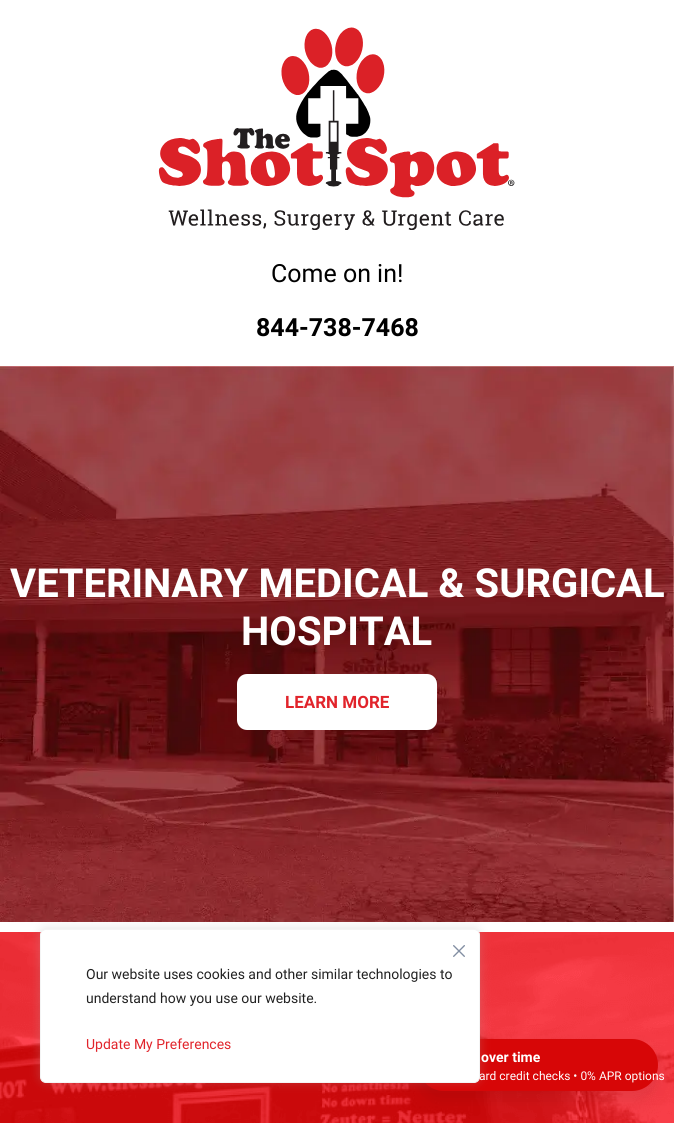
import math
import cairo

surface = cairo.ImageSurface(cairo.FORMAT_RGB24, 674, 1123)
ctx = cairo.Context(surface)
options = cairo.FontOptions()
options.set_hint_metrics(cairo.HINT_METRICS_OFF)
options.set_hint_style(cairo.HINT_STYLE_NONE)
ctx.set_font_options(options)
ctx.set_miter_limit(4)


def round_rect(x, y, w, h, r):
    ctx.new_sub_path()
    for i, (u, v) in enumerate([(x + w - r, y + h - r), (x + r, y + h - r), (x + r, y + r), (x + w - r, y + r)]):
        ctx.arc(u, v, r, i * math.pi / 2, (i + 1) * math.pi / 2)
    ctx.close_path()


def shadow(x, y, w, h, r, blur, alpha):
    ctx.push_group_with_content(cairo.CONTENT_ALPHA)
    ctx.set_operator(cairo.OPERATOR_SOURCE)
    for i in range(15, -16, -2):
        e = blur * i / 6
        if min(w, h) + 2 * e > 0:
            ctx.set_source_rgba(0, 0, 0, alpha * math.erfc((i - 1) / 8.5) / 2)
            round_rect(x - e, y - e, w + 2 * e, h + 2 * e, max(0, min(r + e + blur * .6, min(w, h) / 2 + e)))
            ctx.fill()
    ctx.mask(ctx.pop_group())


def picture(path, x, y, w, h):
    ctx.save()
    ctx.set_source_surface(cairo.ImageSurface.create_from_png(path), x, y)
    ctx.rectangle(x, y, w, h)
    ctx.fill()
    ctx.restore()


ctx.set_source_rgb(1, 1, 1)
ctx.paint()
picture("img1.png", 158, 27, 357, 203)
ctx.select_font_face("Roboto")
ctx.set_font_size(25)
ctx.set_source_rgb(0, 0, 0)
ctx.move_to(271, 282)
ctx.show_text("Come on in!")
ctx.select_font_face("Roboto", cairo.FONT_SLANT_NORMAL, cairo.FONT_WEIGHT_BOLD)
ctx.move_to(256, 336)
ctx.show_text("844-738-7468")
picture("img2.png", 0, 366, 674, 556)
ctx.set_font_size(40)
ctx.set_source_rgb(1, 1, 1)
ctx.move_to(10, 597)
ctx.show_text("VETERINARY MEDICAL & SURGICAL")
ctx.move_to(241, 645)
ctx.show_text("HOSPITAL")
round_rect(237, 674, 200, 56, 10)
ctx.fill()
ctx.set_font_size(17)
ctx.set_source_rgb(0.882, 0.141, 0.169)
ctx.move_to(285, 708)
ctx.show_text("LEARN MORE")
picture("img3.png", 0, 932, 674, 191)
ctx.set_source_rgb(0, 0, 0)
shadow(418, 1045, 240, 52, 26, 6, 0.04)
shadow(418, 1052, 240, 52, 26, 12, 0.05)
ctx.set_source_rgb(0.843, 0.024, 0.031)
round_rect(418, 1039, 240, 52, 26)
ctx.fill()
ctx.set_source_rgb(0.675, 0.671, 0.671)
shadow(40, 928, 440, 154, 6, 5, 0.3)
ctx.set_source_rgb(1, 1, 1)
round_rect(40.5, 929.5, 439, 153, 5.5)
ctx.fill_preserve()
ctx.set_source_rgb(0.957, 0.957, 0.957)
ctx.set_line_width(1)
ctx.stroke()
picture("img4.png", 453, 945, 12, 12)
ctx.select_font_face("Roboto")
ctx.set_font_size(14)
ctx.set_source_rgb(0.129, 0.129, 0.129)
ctx.move_to(86, 979)
ctx.show_text("Our website uses cookies and other similar technologies to")
ctx.move_to(86, 1003)
ctx.show_text("understand how you use our website.")
ctx.set_source_rgb(0.882, 0.141, 0.169)
ctx.move_to(86, 1049)
ctx.show_text("Update My Preferences")
ctx.select_font_face("Roboto", cairo.FONT_SLANT_NORMAL, cairo.FONT_WEIGHT_BOLD)
ctx.set_source_rgb(1, 1, 1)
ctx.move_to(481, 1062)
ctx.show_text("over time")
ctx.select_font_face("Roboto")
ctx.set_font_size(12)
ctx.move_to(479, 1080)
ctx.show_text("ard credit checks • 0% APR options")
surface.write_to_png("page.png")
